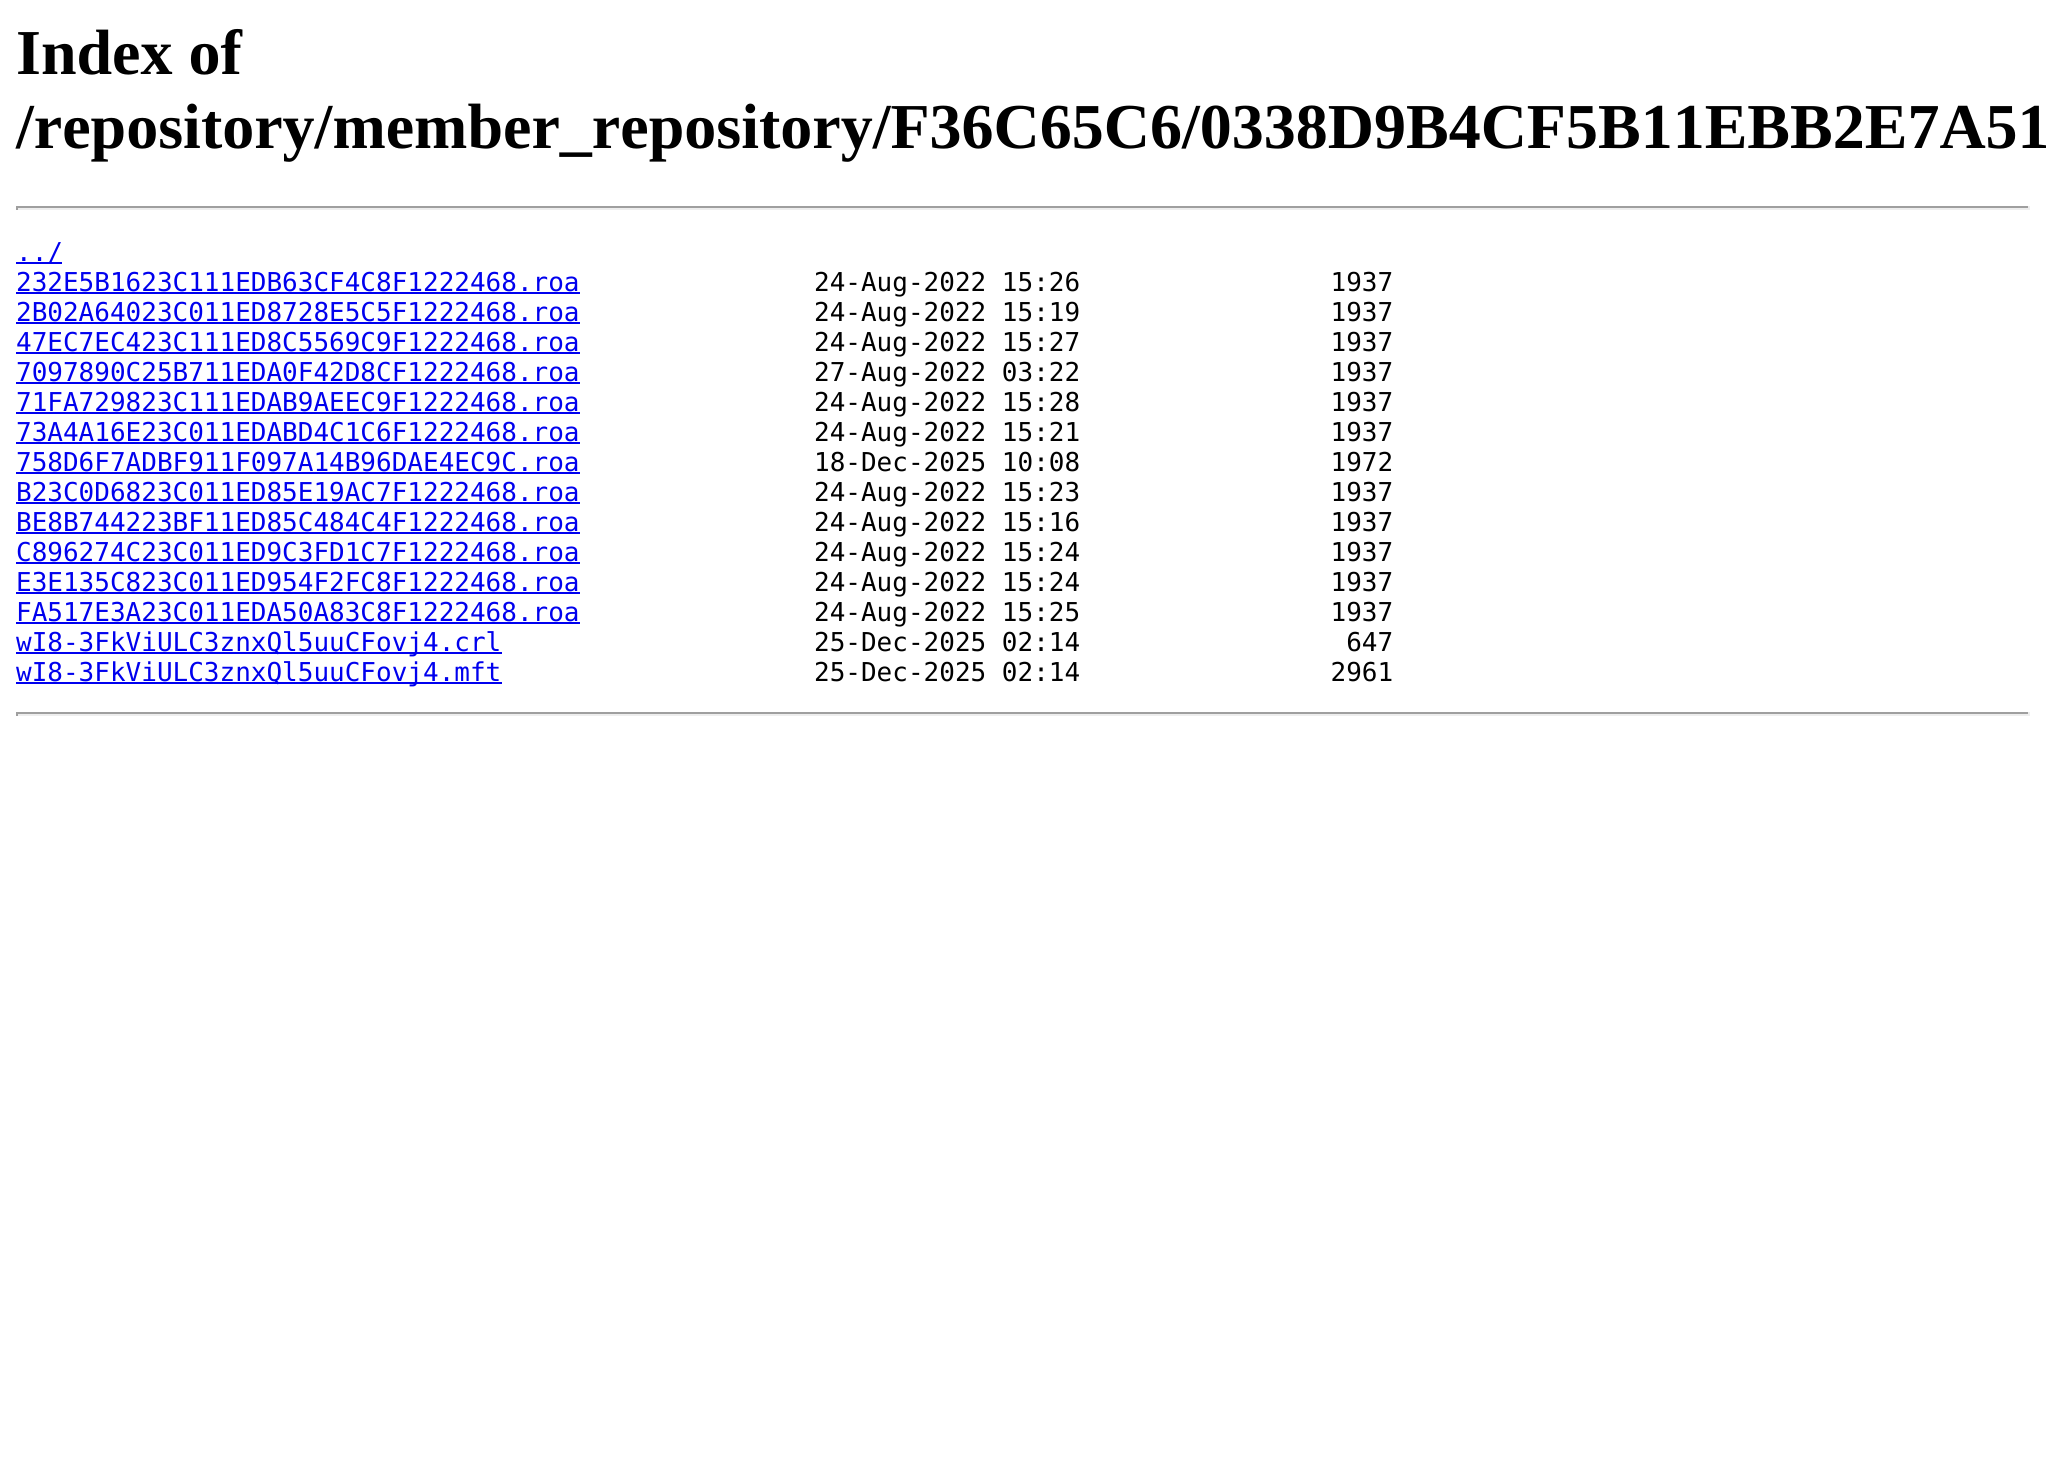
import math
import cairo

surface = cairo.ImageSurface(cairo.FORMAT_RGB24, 2046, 1460)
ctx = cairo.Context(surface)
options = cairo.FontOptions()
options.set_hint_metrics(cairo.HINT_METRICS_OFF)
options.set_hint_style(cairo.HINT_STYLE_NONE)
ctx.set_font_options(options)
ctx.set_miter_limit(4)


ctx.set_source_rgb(1, 1, 1)
ctx.paint()
ctx.select_font_face("Liberation Serif", cairo.FONT_SLANT_NORMAL, cairo.FONT_WEIGHT_BOLD)
ctx.set_font_size(64)
ctx.set_source_rgb(0, 0, 0)
ctx.move_to(16, 74)
ctx.show_text("Index of")
ctx.move_to(16, 148)
ctx.show_text("/repository/member_repository/F36C65C6/0338D9B4CF5B11EBB2E7A51")
ctx.set_source_rgb(0.624, 0.624, 0.624)
ctx.rectangle(16, 206, 2014, 2)
ctx.fill()
ctx.set_source_rgb(0.933, 0.933, 0.933)
ctx.rectangle(2028, 206, 2, 4)
ctx.fill()
ctx.rectangle(16, 208, 2014, 2)
ctx.fill()
ctx.set_source_rgb(0.624, 0.624, 0.624)
ctx.rectangle(16, 206, 2, 4)
ctx.fill()
ctx.set_source_rgb(0, 0, 0.933)
ctx.rectangle(16, 262, 46, 2)
ctx.fill()
ctx.select_font_face("DejaVu Sans Mono")
ctx.set_font_size(26)
ctx.move_to(16, 261)
ctx.show_text("../")
ctx.move_to(16, 291)
ctx.show_text("232E5B1623C111EDB63CF4C8F1222468.roa")
ctx.rectangle(16, 292, 564, 2)
ctx.fill()
ctx.set_source_rgb(0, 0, 0)
ctx.move_to(814, 291)
ctx.show_text("24-Aug-2022 15:26                1937")
ctx.set_source_rgb(0, 0, 0.933)
ctx.move_to(16, 321)
ctx.show_text("2B02A64023C011ED8728E5C5F1222468.roa")
ctx.rectangle(16, 322, 564, 2)
ctx.fill()
ctx.set_source_rgb(0, 0, 0)
ctx.move_to(814, 321)
ctx.show_text("24-Aug-2022 15:19                1937")
ctx.set_source_rgb(0, 0, 0.933)
ctx.move_to(16, 351)
ctx.show_text("47EC7EC423C111ED8C5569C9F1222468.roa")
ctx.rectangle(16, 352, 564, 2)
ctx.fill()
ctx.set_source_rgb(0, 0, 0)
ctx.move_to(814, 351)
ctx.show_text("24-Aug-2022 15:27                1937")
ctx.set_source_rgb(0, 0, 0.933)
ctx.move_to(16, 381)
ctx.show_text("7097890C25B711EDA0F42D8CF1222468.roa")
ctx.rectangle(16, 382, 564, 2)
ctx.fill()
ctx.set_source_rgb(0, 0, 0)
ctx.move_to(814, 381)
ctx.show_text("27-Aug-2022 03:22                1937")
ctx.set_source_rgb(0, 0, 0.933)
ctx.move_to(16, 411)
ctx.show_text("71FA729823C111EDAB9AEEC9F1222468.roa")
ctx.rectangle(16, 412, 564, 2)
ctx.fill()
ctx.set_source_rgb(0, 0, 0)
ctx.move_to(814, 411)
ctx.show_text("24-Aug-2022 15:28                1937")
ctx.set_source_rgb(0, 0, 0.933)
ctx.move_to(16, 441)
ctx.show_text("73A4A16E23C011EDABD4C1C6F1222468.roa")
ctx.rectangle(16, 442, 564, 2)
ctx.fill()
ctx.set_source_rgb(0, 0, 0)
ctx.move_to(814, 441)
ctx.show_text("24-Aug-2022 15:21                1937")
ctx.set_source_rgb(0, 0, 0.933)
ctx.move_to(16, 471)
ctx.show_text("758D6F7ADBF911F097A14B96DAE4EC9C.roa")
ctx.rectangle(16, 472, 564, 2)
ctx.fill()
ctx.set_source_rgb(0, 0, 0)
ctx.move_to(814, 471)
ctx.show_text("18-Dec-2025 10:08                1972")
ctx.set_source_rgb(0, 0, 0.933)
ctx.move_to(16, 501)
ctx.show_text("B23C0D6823C011ED85E19AC7F1222468.roa")
ctx.rectangle(16, 502, 564, 2)
ctx.fill()
ctx.set_source_rgb(0, 0, 0)
ctx.move_to(814, 501)
ctx.show_text("24-Aug-2022 15:23                1937")
ctx.set_source_rgb(0, 0, 0.933)
ctx.move_to(16, 531)
ctx.show_text("BE8B744223BF11ED85C484C4F1222468.roa")
ctx.rectangle(16, 532, 564, 2)
ctx.fill()
ctx.set_source_rgb(0, 0, 0)
ctx.move_to(814, 531)
ctx.show_text("24-Aug-2022 15:16                1937")
ctx.set_source_rgb(0, 0, 0.933)
ctx.move_to(16, 561)
ctx.show_text("C896274C23C011ED9C3FD1C7F1222468.roa")
ctx.rectangle(16, 562, 564, 2)
ctx.fill()
ctx.set_source_rgb(0, 0, 0)
ctx.move_to(814, 561)
ctx.show_text("24-Aug-2022 15:24                1937")
ctx.set_source_rgb(0, 0, 0.933)
ctx.move_to(16, 591)
ctx.show_text("E3E135C823C011ED954F2FC8F1222468.roa")
ctx.rectangle(16, 592, 564, 2)
ctx.fill()
ctx.set_source_rgb(0, 0, 0)
ctx.move_to(814, 591)
ctx.show_text("24-Aug-2022 15:24                1937")
ctx.set_source_rgb(0, 0, 0.933)
ctx.move_to(16, 621)
ctx.show_text("FA517E3A23C011EDA50A83C8F1222468.roa")
ctx.rectangle(16, 622, 564, 2)
ctx.fill()
ctx.set_source_rgb(0, 0, 0)
ctx.move_to(814, 621)
ctx.show_text("24-Aug-2022 15:25                1937")
ctx.set_source_rgb(0, 0, 0.933)
ctx.rectangle(16, 652, 486, 2)
ctx.fill()
ctx.move_to(16, 651)
ctx.show_text("wI8-3FkViULC3znxQl5uuCFovj4.crl")
ctx.set_source_rgb(0, 0, 0)
ctx.move_to(814, 651)
ctx.show_text("25-Dec-2025 02:14                 647")
ctx.set_source_rgb(0, 0, 0.933)
ctx.rectangle(16, 682, 486, 2)
ctx.fill()
ctx.move_to(16, 681)
ctx.show_text("wI8-3FkViULC3znxQl5uuCFovj4.mft")
ctx.set_source_rgb(0, 0, 0)
ctx.move_to(814, 681)
ctx.show_text("25-Dec-2025 02:14                2961")
ctx.set_source_rgb(0.624, 0.624, 0.624)
ctx.rectangle(16, 712, 2014, 2)
ctx.fill()
ctx.set_source_rgb(0.933, 0.933, 0.933)
ctx.rectangle(2028, 712, 2, 4)
ctx.fill()
ctx.rectangle(16, 714, 2014, 2)
ctx.fill()
ctx.set_source_rgb(0.624, 0.624, 0.624)
ctx.rectangle(16, 712, 2, 4)
ctx.fill()
surface.write_to_png("page.png")
